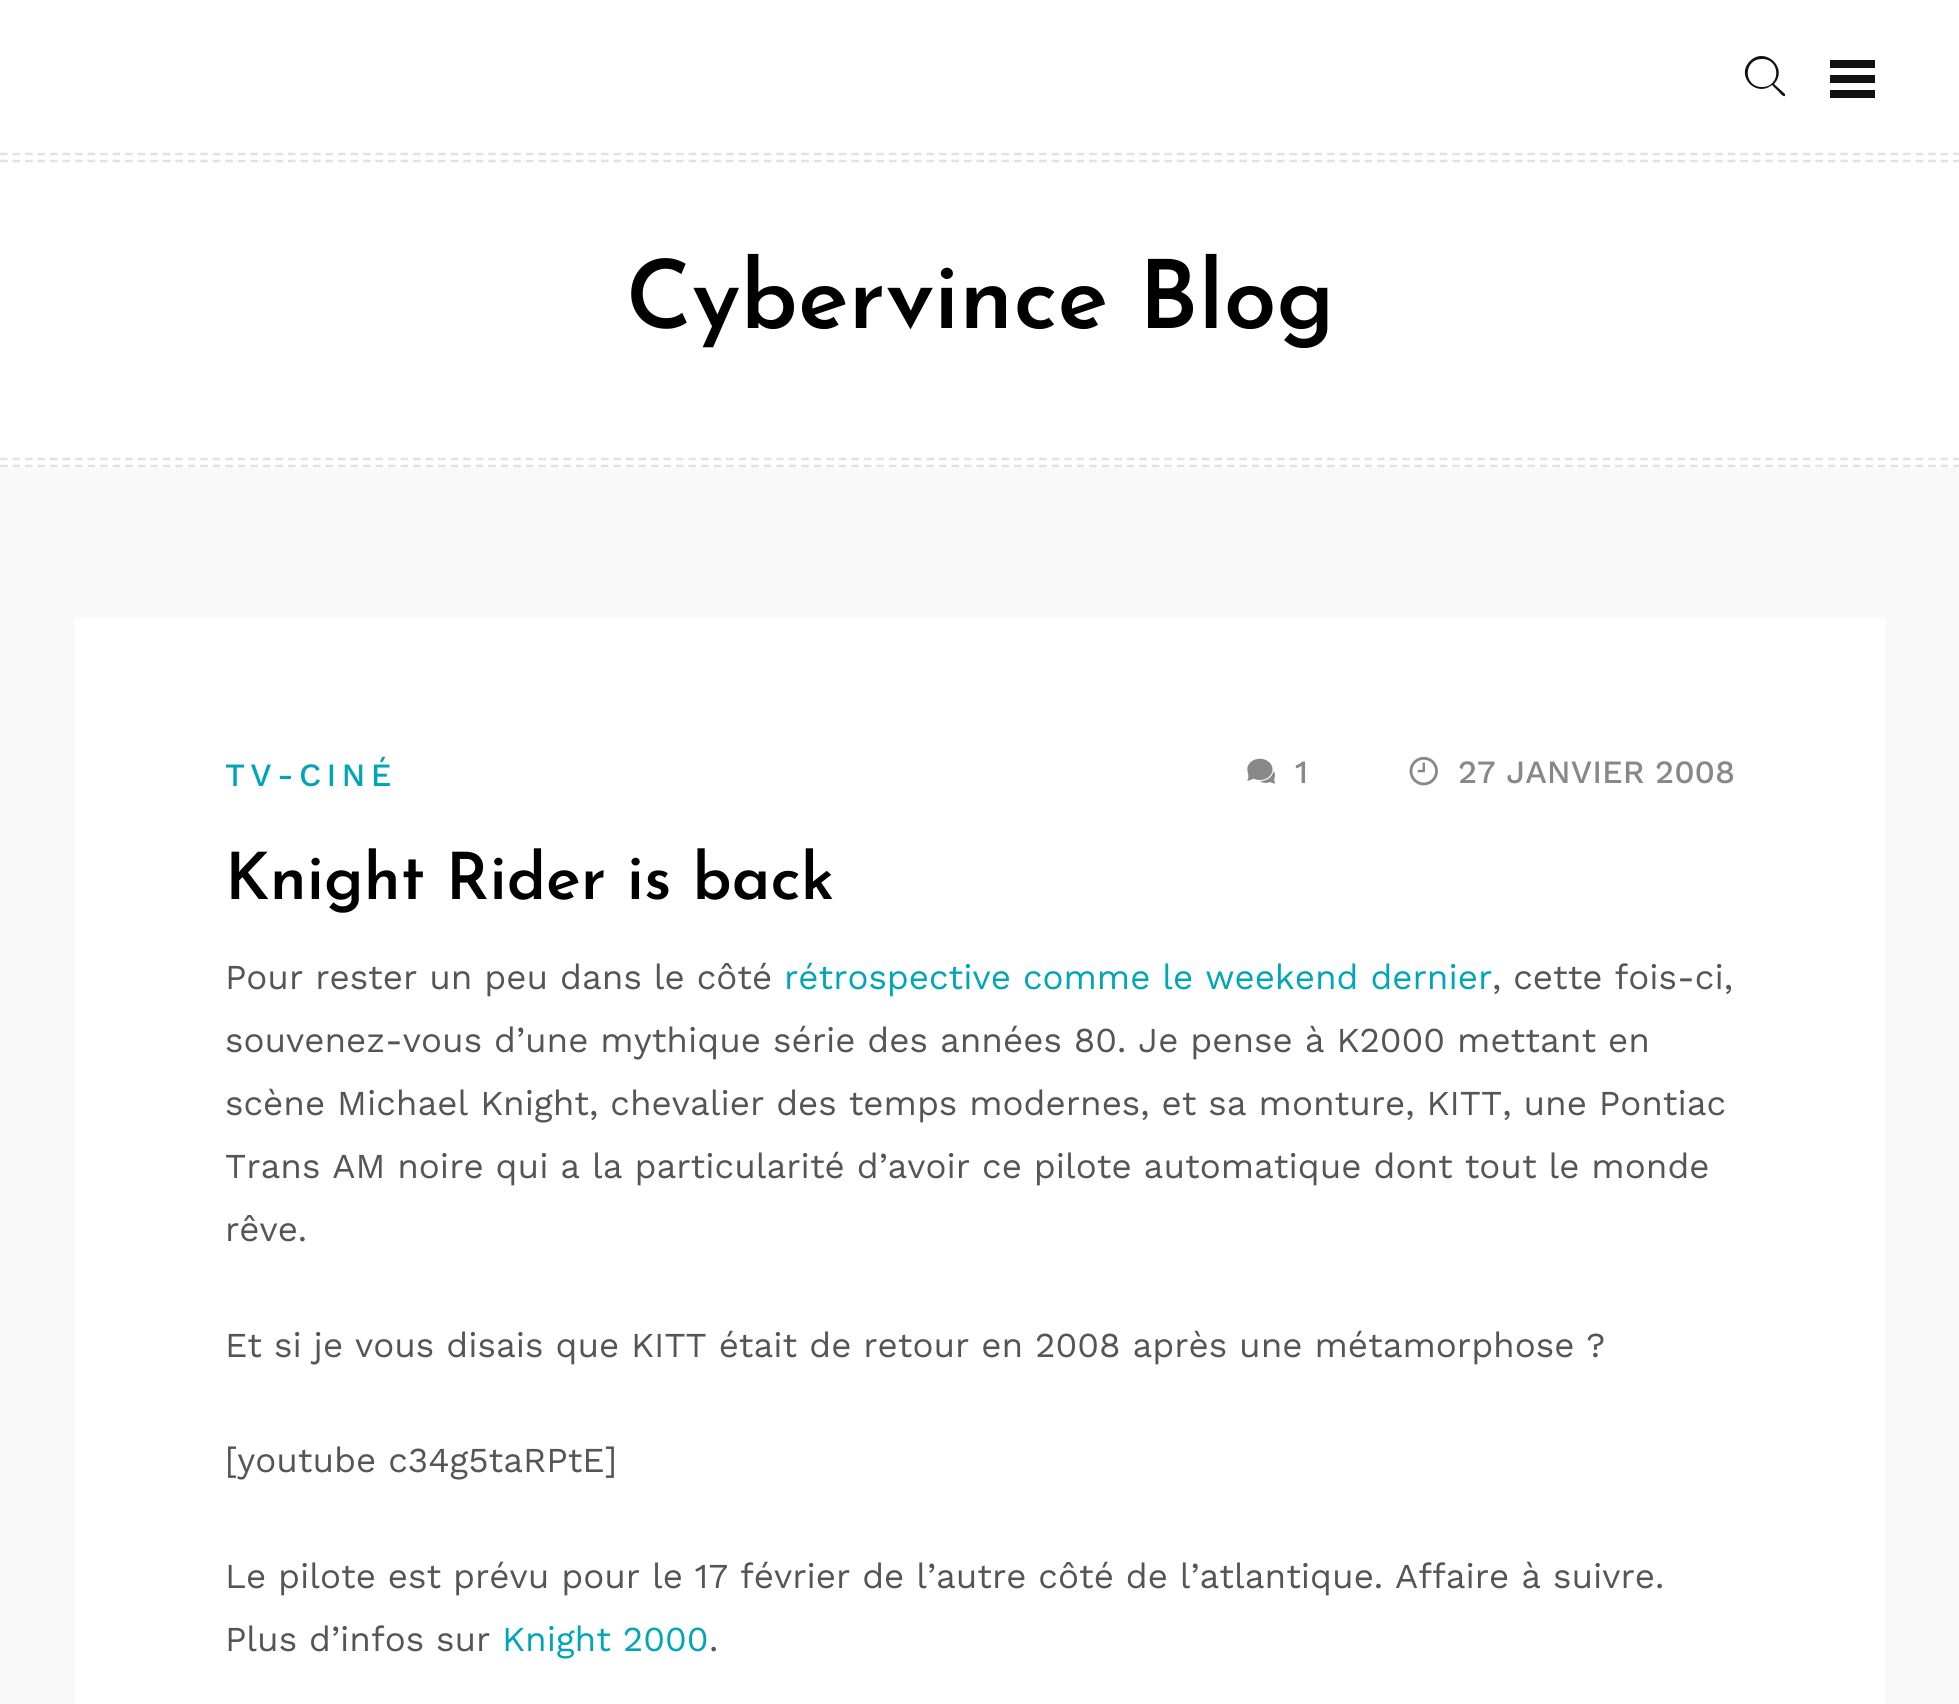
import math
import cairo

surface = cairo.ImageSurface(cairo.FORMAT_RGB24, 1959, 1704)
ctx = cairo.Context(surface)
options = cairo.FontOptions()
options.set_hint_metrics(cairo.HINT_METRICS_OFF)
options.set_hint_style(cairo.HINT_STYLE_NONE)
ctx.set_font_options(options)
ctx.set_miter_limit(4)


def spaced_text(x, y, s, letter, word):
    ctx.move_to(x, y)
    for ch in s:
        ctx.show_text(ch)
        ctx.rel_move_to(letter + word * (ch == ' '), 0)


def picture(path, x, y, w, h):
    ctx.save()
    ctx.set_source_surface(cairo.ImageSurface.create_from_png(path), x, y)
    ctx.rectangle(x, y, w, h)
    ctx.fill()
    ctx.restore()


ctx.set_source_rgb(0.973, 0.973, 0.973)
ctx.paint()
ctx.set_source_rgb(1, 1, 1)
ctx.rectangle(0, 0, 1959, 468)
ctx.fill()
ctx.new_path()
ctx.move_to(0, 161)
ctx.line_to(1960, 161)
ctx.set_source_rgb(0.886, 0.886, 0.886)
ctx.set_line_width(2.5)
ctx.set_dash([7.5, 5.02])
ctx.stroke()
ctx.set_source_rgb(0.067, 0.067, 0.067)
ctx.new_path()
ctx.move_to(1785, 94)
ctx.line_to(1774, 84)
ctx.curve_to(1789, 68, 1765, 46, 1750, 61)
ctx.curve_to(1735, 76, 1756, 98, 1772, 85)
ctx.line_to(1779, 92)
ctx.curve_to(1780, 93, 1783, 97, 1785, 96)
ctx.close_path()
ctx.move_to(1762, 87)
ctx.curve_to(1743, 87, 1743, 59, 1762, 59)
ctx.curve_to(1781, 59, 1781, 87, 1762, 87)
ctx.close_path()
ctx.fill()
ctx.rectangle(1830, 60, 45, 8)
ctx.fill()
ctx.rectangle(1830, 75, 45, 8)
ctx.fill()
ctx.rectangle(1830, 90, 45, 8)
ctx.fill()
ctx.new_path()
ctx.move_to(0, 154)
ctx.line_to(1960, 154)
ctx.set_source_rgb(0.886, 0.886, 0.886)
ctx.stroke()
ctx.new_path()
ctx.move_to(0, 466)
ctx.line_to(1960, 466)
ctx.stroke()
ctx.select_font_face("Josefin Sans SemiBold")
ctx.set_font_size(95)
ctx.set_source_rgb(0, 0, 0)
ctx.move_to(626, 328)
ctx.show_text("Cybervince Blog")
ctx.new_path()
ctx.move_to(0, 459)
ctx.line_to(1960, 459)
ctx.set_source_rgb(0.886, 0.886, 0.886)
ctx.stroke()
ctx.set_source_rgb(1, 1, 1)
ctx.rectangle(75, 618, 1810, 1086)
ctx.fill()
ctx.select_font_face("Work Sans Medium")
ctx.set_font_size(32.5)
ctx.set_source_rgb(0, 0.651, 0.714)
spaced_text(225, 786, "TV-CINÉ", 5.25, 0)
picture("img1.png", 1247, 758, 29, 26)
ctx.set_source_rgb(0.533, 0.533, 0.533)
ctx.move_to(1295, 783)
ctx.show_text("1")
picture("img2.png", 1409, 756, 29, 30)
ctx.move_to(1458, 783)
ctx.show_text("27 JANVIER 2008")
ctx.select_font_face("Josefin Sans SemiBold")
ctx.set_font_size(65)
ctx.set_source_rgb(0, 0, 0)
ctx.move_to(225, 899)
ctx.show_text("Knight Rider is back")
ctx.select_font_face("Work Sans")
ctx.set_font_size(35)
ctx.set_source_rgb(0.333, 0.333, 0.333)
ctx.move_to(225, 989)
ctx.show_text("Pour rester un peu dans le côté")
ctx.set_source_rgb(0, 0.651, 0.714)
ctx.move_to(784, 989)
ctx.show_text("rétrospective comme le weekend dernier")
ctx.set_source_rgb(0.333, 0.333, 0.333)
ctx.move_to(1492, 989)
ctx.show_text(", cette fois-ci,")
ctx.move_to(225, 1052)
ctx.show_text("souvenez-vous d’une mythique série des années 80. Je pense à K2000 mettant en")
ctx.move_to(225, 1115)
ctx.show_text("scène Michael Knight, chevalier des temps modernes, et sa monture, KITT, une Pontiac")
ctx.move_to(225, 1178)
ctx.show_text("Trans AM noire qui a la particularité d’avoir ce pilote automatique dont tout le monde")
ctx.move_to(225, 1241)
ctx.show_text("rêve.")
ctx.move_to(225, 1357)
ctx.show_text("Et si je vous disais que KITT était de retour en 2008 après une métamorphose ?")
ctx.move_to(225, 1472)
ctx.show_text("[youtube c34g5taRPtE]")
ctx.move_to(225, 1588)
ctx.show_text("Le pilote est prévu pour le 17 février de l’autre côté de l’atlantique. Affaire à suivre.")
ctx.move_to(225, 1651)
ctx.show_text("Plus d’infos sur")
ctx.set_source_rgb(0, 0.651, 0.714)
ctx.move_to(502, 1651)
ctx.show_text("Knight 2000")
ctx.set_source_rgb(0.333, 0.333, 0.333)
ctx.move_to(709, 1651)
ctx.show_text(".")
surface.write_to_png("page.png")
